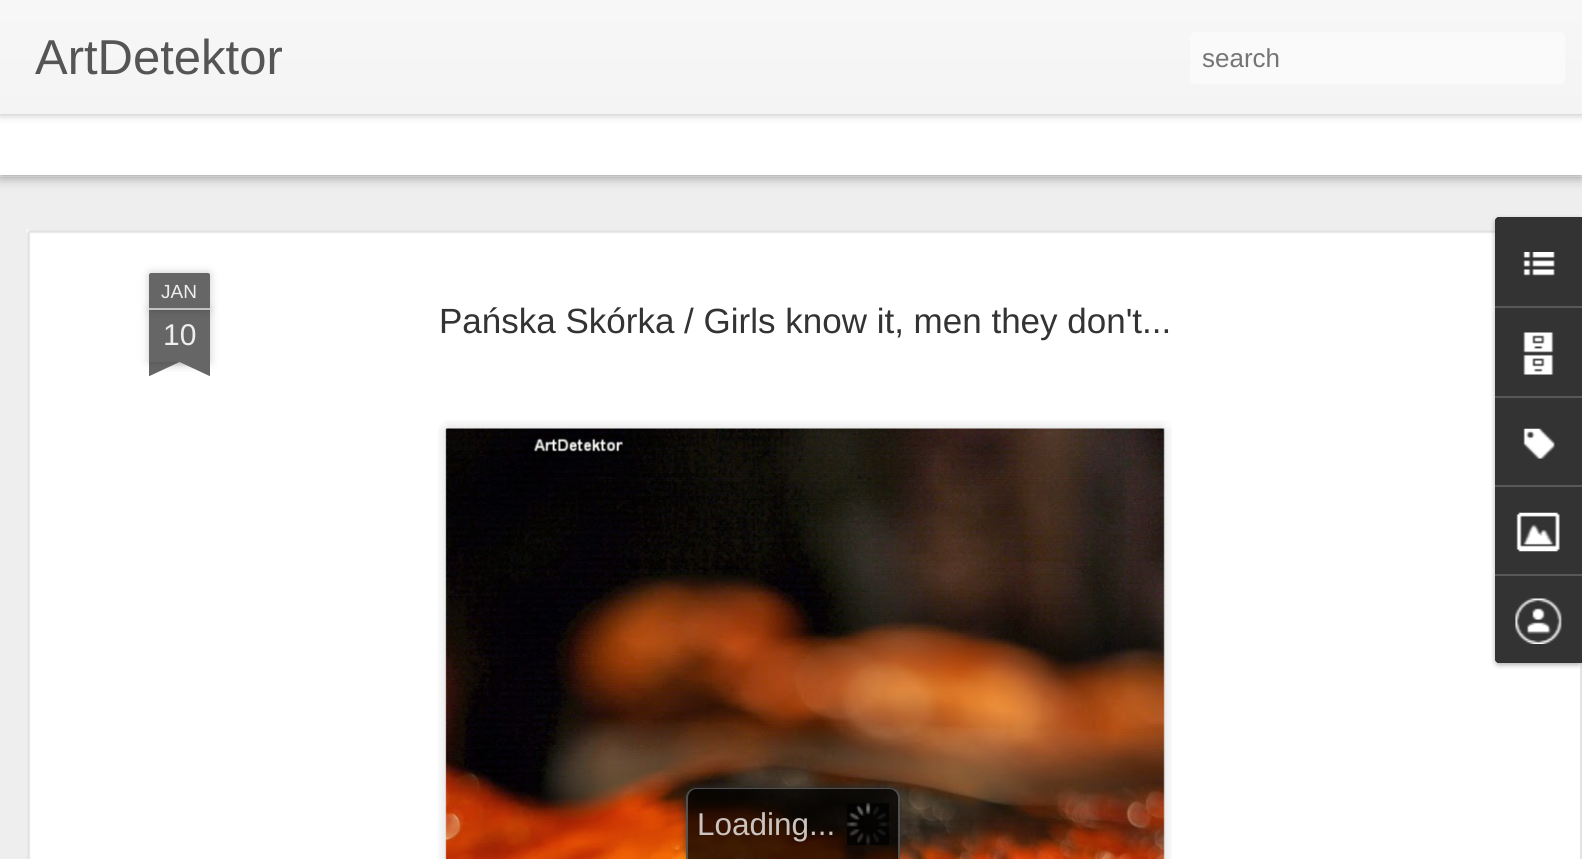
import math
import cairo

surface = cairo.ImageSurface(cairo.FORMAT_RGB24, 1582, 859)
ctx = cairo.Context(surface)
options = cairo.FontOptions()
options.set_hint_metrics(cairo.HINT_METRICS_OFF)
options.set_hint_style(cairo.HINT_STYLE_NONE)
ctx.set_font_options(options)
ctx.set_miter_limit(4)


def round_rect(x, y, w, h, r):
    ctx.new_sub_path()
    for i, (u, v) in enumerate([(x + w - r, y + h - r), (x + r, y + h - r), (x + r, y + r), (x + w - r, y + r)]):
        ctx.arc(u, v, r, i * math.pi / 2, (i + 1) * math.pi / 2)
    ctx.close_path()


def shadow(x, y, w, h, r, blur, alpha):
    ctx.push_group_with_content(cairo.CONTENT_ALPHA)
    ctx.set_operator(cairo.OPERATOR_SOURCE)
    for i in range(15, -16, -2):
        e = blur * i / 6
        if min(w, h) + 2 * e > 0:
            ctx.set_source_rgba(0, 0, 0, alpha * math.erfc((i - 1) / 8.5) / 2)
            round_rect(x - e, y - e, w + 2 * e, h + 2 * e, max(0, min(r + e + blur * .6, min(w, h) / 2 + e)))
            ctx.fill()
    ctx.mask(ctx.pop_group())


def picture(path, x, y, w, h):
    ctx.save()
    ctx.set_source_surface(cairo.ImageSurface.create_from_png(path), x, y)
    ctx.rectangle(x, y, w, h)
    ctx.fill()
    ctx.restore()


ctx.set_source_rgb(1, 1, 1)
ctx.paint()
ctx.set_source_rgb(0.933, 0.933, 0.933)
ctx.rectangle(0, 177, 1582, 682)
ctx.fill()
ctx.set_source_rgb(0, 0, 0)
shadow(0, 114, 1582, 61, 0, 7, 0.5)
ctx.set_source_rgb(1, 1, 1)
ctx.rectangle(0, 114, 1582, 61)
ctx.fill()
ctx.set_source_rgb(0, 0, 0)
shadow(0, 0, 1582, 114, 0, 4.5, 0.3)
gradient = cairo.LinearGradient(0, 0, 0, 114)
gradient.add_color_stop_rgba(0, 0.969, 0.969, 0.969, 1)
gradient.add_color_stop_rgba(1, 0.957, 0.957, 0.957, 1)
ctx.set_source(gradient)
ctx.rectangle(0, 0, 1582, 114)
ctx.fill()
ctx.select_font_face("Liberation Sans")
ctx.set_font_size(49)
ctx.set_source_rgb(0.333, 0.333, 0.333)
ctx.move_to(35, 74)
ctx.show_text("ArtDetektor")
ctx.set_source_rgb(0.98, 0.98, 0.98)
round_rect(1190, 32, 375, 52, 5)
ctx.fill()
ctx.set_font_size(26)
ctx.set_source_rgb(0.459, 0.459, 0.459)
ctx.move_to(1202, 67)
ctx.show_text("search")
ctx.set_source_rgb(1, 1, 1)
ctx.rectangle(26, 229, 1556, 630)
ctx.fill()
picture("img1.png", 26, 229, 1556, 630)
ctx.set_source_rgb(0, 0, 0)
shadow(149, 310, 61, 52, 0, 4.5, 0.2)
ctx.set_source_rgb(0.4, 0.4, 0.4)
ctx.rectangle(149, 310, 61, 52)
ctx.fill()
ctx.set_source_rgb(0, 0, 0)
shadow(149, 273, 61, 37, 2, 4.5, 0.2)
ctx.set_source_rgb(0.4, 0.4, 0.4)
ctx.new_path()
ctx.move_to(151, 273)
ctx.line_to(208, 273)
ctx.curve_to(209, 273, 210, 274, 210, 275)
ctx.line_to(210, 310)
ctx.line_to(149, 310)
ctx.line_to(149, 275)
ctx.curve_to(149, 274, 150, 273, 151, 273)
ctx.close_path()
ctx.fill()
ctx.set_source_rgb(0.761, 0.761, 0.761)
ctx.rectangle(149, 308, 61, 2)
ctx.fill()
ctx.set_font_size(19)
ctx.set_source_rgb(0.933, 0.933, 0.933)
ctx.move_to(161, 298)
ctx.show_text("JAN")
ctx.set_font_size(30)
ctx.move_to(163, 345)
ctx.show_text("10")
ctx.save()
ctx.rectangle(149, 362, 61, 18)
ctx.clip()
ctx.set_source_rgb(0, 0, 0)
shadow(133, 345, 88, 17, 0, 4.5, 0.2)
ctx.restore()
ctx.save()
ctx.rectangle(149, 362, 61, 18)
ctx.clip()
ctx.set_source_rgb(0.4, 0.4, 0.4)
ctx.new_path()
ctx.move_to(133, 364)
ctx.line_to(213, 327)
ctx.line_to(220, 343)
ctx.line_to(141, 380)
ctx.close_path()
ctx.fill()
ctx.restore()
ctx.save()
ctx.rectangle(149, 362, 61, 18)
ctx.clip()
ctx.set_source_rgb(0, 0, 0)
shadow(138, 345, 88, 17, 0, 4.5, 0.2)
ctx.restore()
ctx.save()
ctx.rectangle(149, 362, 61, 18)
ctx.clip()
ctx.set_source_rgb(0.4, 0.4, 0.4)
ctx.new_path()
ctx.move_to(146, 327)
ctx.line_to(225, 364)
ctx.line_to(218, 380)
ctx.line_to(139, 343)
ctx.close_path()
ctx.fill()
ctx.restore()
ctx.set_font_size(35)
ctx.set_source_rgb(0.2, 0.2, 0.2)
ctx.move_to(439, 333)
ctx.show_text("Pańska Skórka / Girls know it, men they don't...")
picture("img2.png", 438, 420, 734, 439)
picture("img3.png", 445, 428, 720, 431)
ctx.set_source_rgb(0, 0, 0)
shadow(1495, 219, 87, 446, 4, 2.5, 0.3)
ctx.set_source_rgb(0.2, 0.2, 0.2)
ctx.new_path()
ctx.move_to(1499, 217)
ctx.line_to(1582, 217)
ctx.line_to(1582, 663)
ctx.line_to(1499, 663)
ctx.curve_to(1497, 663, 1495, 661, 1495, 659)
ctx.line_to(1495, 221)
ctx.curve_to(1495, 219, 1497, 217, 1499, 217)
ctx.close_path()
ctx.fill()
ctx.new_path()
ctx.move_to(1499, 217)
ctx.line_to(1582, 217)
ctx.line_to(1582, 306)
ctx.line_to(1495, 306)
ctx.line_to(1495, 221)
ctx.curve_to(1495, 219, 1497, 217, 1499, 217)
ctx.close_path()
ctx.fill()
picture("img4.png", 1523, 252, 32, 24)
ctx.set_source_rgb(0.345, 0.345, 0.345)
ctx.rectangle(1495, 306, 87, 2)
ctx.fill()
picture("img5.png", 1523, 332, 31, 43)
ctx.rectangle(1495, 396, 87, 2)
ctx.fill()
picture("img6.png", 1523, 428, 32, 31)
ctx.rectangle(1495, 485, 87, 2)
ctx.fill()
picture("img7.png", 1516, 512, 44, 40)
ctx.set_source_rgb(0.2, 0.2, 0.2)
ctx.new_path()
ctx.move_to(1495, 574)
ctx.line_to(1582, 574)
ctx.line_to(1582, 663)
ctx.line_to(1499, 663)
ctx.curve_to(1497, 663, 1495, 661, 1495, 659)
ctx.close_path()
ctx.fill()
ctx.set_source_rgb(0.345, 0.345, 0.345)
ctx.rectangle(1495, 574, 87, 2)
ctx.fill()
picture("img8.png", 1515, 598, 47, 46)
ctx.save()
ctx.set_fill_rule(cairo.FILL_RULE_EVEN_ODD)
ctx.new_path()
ctx.move_to(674, 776)
ctx.line_to(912, 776)
ctx.line_to(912, 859)
ctx.line_to(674, 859)
ctx.close_path()
ctx.move_to(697, 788)
ctx.line_to(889, 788)
ctx.curve_to(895, 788, 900, 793, 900, 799)
ctx.line_to(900, 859)
ctx.line_to(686, 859)
ctx.line_to(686, 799)
ctx.curve_to(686, 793, 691, 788, 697, 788)
ctx.close_path()
ctx.clip()
ctx.set_source_rgb(0.2, 0.2, 0.2)
shadow(686, 788, 214, 71, 11, 3.5, 0.75)
ctx.restore()
ctx.set_source_rgba(0, 0, 0, 0.75)
ctx.new_path()
ctx.move_to(697, 788)
ctx.line_to(889, 788)
ctx.curve_to(895, 788, 900, 793, 900, 799)
ctx.line_to(900, 859)
ctx.line_to(686, 859)
ctx.line_to(686, 799)
ctx.curve_to(686, 793, 691, 788, 697, 788)
ctx.close_path()
ctx.fill()
ctx.set_source_rgba(0.4, 0.4, 0.4, 0.75)
ctx.set_fill_rule(cairo.FILL_RULE_EVEN_ODD)
ctx.new_path()
ctx.move_to(696, 788)
ctx.line_to(889, 788)
ctx.curve_to(895, 788, 900, 792, 900, 798)
ctx.line_to(900, 859)
ctx.line_to(686, 859)
ctx.line_to(686, 798)
ctx.curve_to(686, 792, 691, 788, 696, 788)
ctx.close_path()
ctx.move_to(696, 789)
ctx.line_to(889, 789)
ctx.curve_to(894, 789, 898, 793, 898, 798)
ctx.line_to(898, 859)
ctx.line_to(688, 859)
ctx.line_to(688, 798)
ctx.curve_to(688, 793, 692, 789, 696, 789)
ctx.close_path()
ctx.fill()
picture("img9.png", 847, 803, 42, 43)
ctx.set_font_size(31.5)
ctx.set_source_rgb(0.792, 0.765, 0.749)
ctx.move_to(697, 835)
ctx.show_text("Loading")
ctx.move_to(809, 835)
ctx.show_text("...")
surface.write_to_png("page.png")
